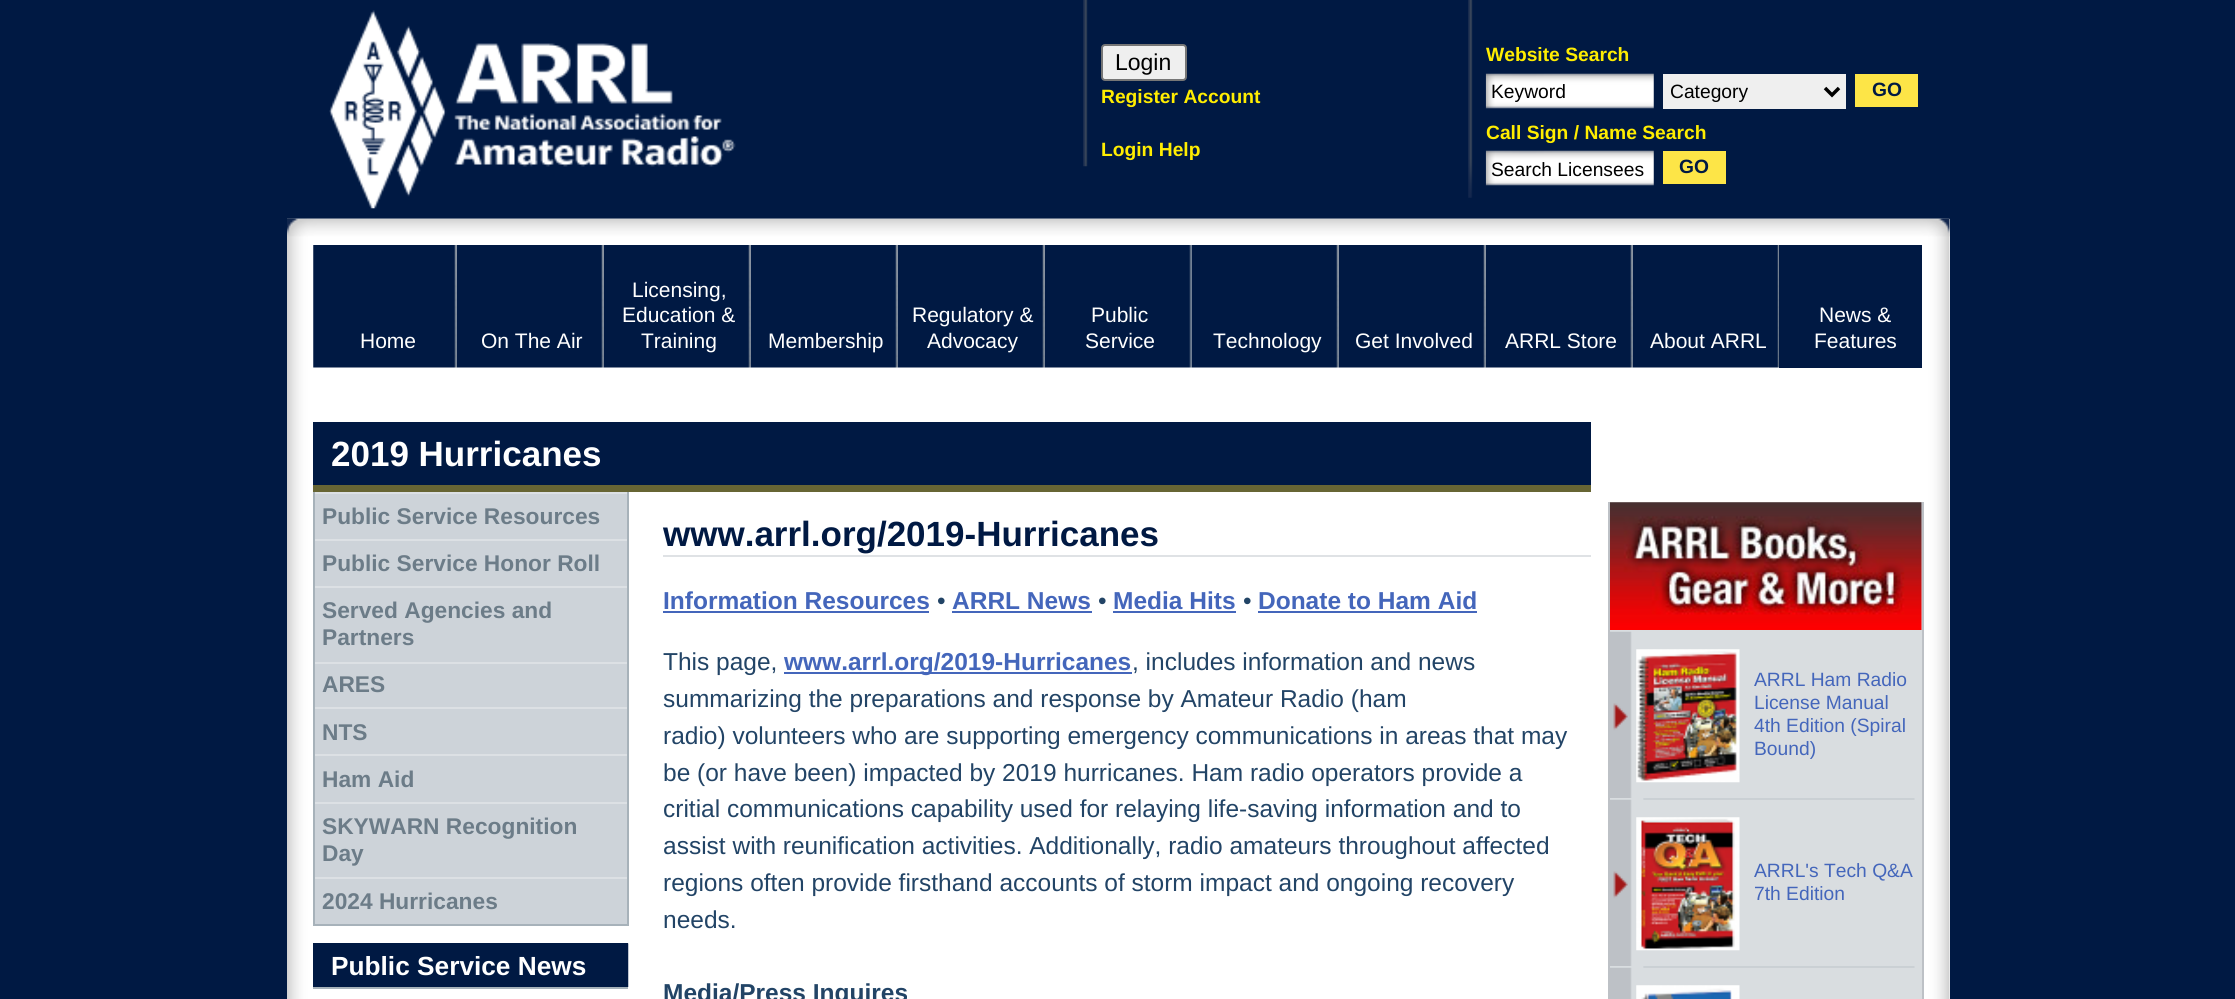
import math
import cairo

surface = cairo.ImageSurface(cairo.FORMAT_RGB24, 2235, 999)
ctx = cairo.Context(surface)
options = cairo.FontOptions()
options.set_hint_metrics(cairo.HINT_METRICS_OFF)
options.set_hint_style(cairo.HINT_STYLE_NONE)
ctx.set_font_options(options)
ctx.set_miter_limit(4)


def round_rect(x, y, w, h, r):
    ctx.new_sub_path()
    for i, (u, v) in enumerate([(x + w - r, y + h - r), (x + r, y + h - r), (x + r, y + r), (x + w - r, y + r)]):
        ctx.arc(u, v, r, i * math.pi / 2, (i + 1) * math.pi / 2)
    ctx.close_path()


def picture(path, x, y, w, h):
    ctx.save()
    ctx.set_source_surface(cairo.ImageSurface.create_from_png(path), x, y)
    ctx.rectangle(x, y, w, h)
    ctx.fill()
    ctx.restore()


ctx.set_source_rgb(0, 0.098, 0.263)
ctx.paint()
picture("img1.png", 329, 10, 407, 199)
picture("img2.png", 1083, 0, 5, 167)
ctx.set_source_rgb(0.937, 0.937, 0.937)
round_rect(1102, 45, 84, 35, 3)
ctx.fill_preserve()
ctx.set_source_rgb(0.463, 0.463, 0.463)
ctx.stroke()
ctx.select_font_face("Liberation Sans")
ctx.set_font_size(23)
ctx.set_source_rgb(0, 0, 0)
ctx.move_to(1115, 70)
ctx.show_text("Login")
ctx.select_font_face("Liberation Sans", cairo.FONT_SLANT_NORMAL, cairo.FONT_WEIGHT_BOLD)
ctx.set_font_size(19.25)
ctx.set_source_rgb(1, 0.929, 0.004)
ctx.move_to(1101, 103)
ctx.show_text("Register Account")
ctx.move_to(1101, 156)
ctx.show_text("Login Help")
picture("img3.png", 1468, 0, 5, 198)
ctx.move_to(1486, 61)
ctx.show_text("Website Search")
picture("img4.png", 1485, 73, 169, 36)
ctx.select_font_face("Liberation Sans")
ctx.set_source_rgb(0, 0, 0)
ctx.move_to(1491, 98)
ctx.show_text("Keyword")
ctx.set_source_rgb(0.937, 0.937, 0.937)
ctx.rectangle(1663, 74, 183, 35)
ctx.fill()
ctx.new_path()
ctx.move_to(1825, 88)
ctx.line_to(1832, 95)
ctx.line_to(1839, 88)
ctx.set_source_rgb(0, 0, 0)
ctx.set_line_width(3.5)
ctx.stroke()
ctx.move_to(1670, 98)
ctx.show_text("Category")
ctx.set_source_rgb(0.992, 0.898, 0.278)
ctx.rectangle(1855, 74, 63, 33)
ctx.fill()
ctx.select_font_face("Liberation Sans", cairo.FONT_SLANT_NORMAL, cairo.FONT_WEIGHT_BOLD)
ctx.set_source_rgb(0, 0.098, 0.263)
ctx.move_to(1872, 96)
ctx.show_text("GO")
ctx.set_source_rgb(1, 0.929, 0.004)
ctx.move_to(1486, 139)
ctx.show_text("Call Sign / Name Search")
picture("img4.png", 1485, 150, 169, 36)
ctx.select_font_face("Liberation Sans")
ctx.set_source_rgb(0, 0, 0)
ctx.move_to(1491, 176)
ctx.show_text("Search Licensees")
ctx.set_source_rgb(0.992, 0.898, 0.278)
ctx.rectangle(1663, 151, 63, 33)
ctx.fill()
ctx.select_font_face("Liberation Sans", cairo.FONT_SLANT_NORMAL, cairo.FONT_WEIGHT_BOLD)
ctx.set_source_rgb(0, 0.098, 0.263)
ctx.move_to(1679, 173)
ctx.show_text("GO")
ctx.set_source_rgb(1, 1, 1)
ctx.rectangle(1949, 219, 1, 780)
ctx.fill()
picture("img5.png", 287, 218, 1663, 781)
picture("img6.png", 287, 218, 1663, 19)
picture("img7.png", 313, 245, 144, 123)
ctx.select_font_face("Liberation Sans")
ctx.set_font_size(21)
ctx.move_to(360, 348)
ctx.show_text("Home")
picture("img8.png", 456, 245, 148, 123)
ctx.move_to(481, 348)
ctx.show_text("On The Air")
picture("img9.png", 603, 245, 148, 123)
ctx.move_to(632, 297)
ctx.show_text("Licensing,")
ctx.move_to(622, 322)
ctx.show_text("Education &")
ctx.move_to(641, 348)
ctx.show_text("Training")
picture("img9.png", 750, 245, 148, 123)
ctx.move_to(768, 348)
ctx.show_text("Membership")
picture("img9.png", 897, 245, 148, 123)
ctx.move_to(912, 322)
ctx.show_text("Regulatory &")
ctx.move_to(927, 348)
ctx.show_text("Advocacy")
picture("img10.png", 1044, 245, 148, 123)
ctx.move_to(1091, 322)
ctx.show_text("Public")
ctx.move_to(1085, 348)
ctx.show_text("Service")
picture("img11.png", 1191, 245, 148, 123)
ctx.move_to(1213, 348)
ctx.show_text("Technology")
picture("img9.png", 1338, 245, 148, 123)
ctx.move_to(1355, 348)
ctx.show_text("Get Involved")
picture("img9.png", 1485, 245, 148, 123)
ctx.move_to(1505, 348)
ctx.show_text("ARRL Store")
picture("img12.png", 1632, 245, 147, 123)
ctx.move_to(1650, 348)
ctx.show_text("About ARRL")
ctx.set_source_rgb(0, 0.098, 0.263)
ctx.rectangle(1779, 245, 143, 123)
ctx.fill()
ctx.set_source_rgb(1, 1, 1)
ctx.move_to(1819, 322)
ctx.show_text("News &")
ctx.move_to(1814, 348)
ctx.show_text("Features")
ctx.set_source_rgb(0, 0.098, 0.263)
ctx.rectangle(313, 422, 1278, 63)
ctx.fill()
ctx.set_source_rgb(0.404, 0.396, 0.204)
ctx.rectangle(313, 485, 1278, 7)
ctx.fill()
ctx.select_font_face("Liberation Sans", cairo.FONT_SLANT_NORMAL, cairo.FONT_WEIGHT_BOLD)
ctx.set_font_size(35)
ctx.set_source_rgb(1, 1, 1)
ctx.move_to(331, 466)
ctx.show_text("2019 Hurricanes")
ctx.set_source_rgb(0.804, 0.827, 0.851)
ctx.rectangle(315, 494, 312, 430)
ctx.fill()
ctx.set_source_rgb(0.655, 0.698, 0.729)
ctx.rectangle(627, 492, 2, 434)
ctx.fill()
ctx.rectangle(313, 924, 315, 2)
ctx.fill()
ctx.rectangle(313, 492, 2, 434)
ctx.fill()
ctx.set_source_rgb(0.863, 0.878, 0.894)
ctx.rectangle(315, 492, 312, 2)
ctx.fill()
ctx.set_font_size(22.75)
ctx.set_source_rgb(0.424, 0.486, 0.533)
ctx.move_to(322, 524)
ctx.show_text("Public Service Resources")
ctx.set_source_rgb(0.863, 0.878, 0.894)
ctx.rectangle(315, 539, 312, 2)
ctx.fill()
ctx.set_source_rgb(0.424, 0.486, 0.533)
ctx.move_to(322, 571)
ctx.show_text("Public Service Honor Roll")
ctx.set_source_rgb(0.863, 0.878, 0.894)
ctx.rectangle(315, 586, 312, 2)
ctx.fill()
ctx.set_source_rgb(0.424, 0.486, 0.533)
ctx.move_to(322, 618)
ctx.show_text("Served Agencies and")
ctx.move_to(322, 645)
ctx.show_text("Partners")
ctx.set_source_rgb(0.863, 0.878, 0.894)
ctx.rectangle(315, 662, 312, 2)
ctx.fill()
ctx.set_source_rgb(0.424, 0.486, 0.533)
ctx.move_to(322, 692)
ctx.show_text("ARES")
ctx.set_source_rgb(0.863, 0.878, 0.894)
ctx.rectangle(315, 707, 312, 2)
ctx.fill()
ctx.set_source_rgb(0.424, 0.486, 0.533)
ctx.move_to(322, 740)
ctx.show_text("NTS")
ctx.set_source_rgb(0.863, 0.878, 0.894)
ctx.rectangle(315, 754, 312, 2)
ctx.fill()
ctx.set_source_rgb(0.424, 0.486, 0.533)
ctx.move_to(322, 787)
ctx.show_text("Ham Aid")
ctx.set_source_rgb(0.863, 0.878, 0.894)
ctx.rectangle(315, 802, 312, 2)
ctx.fill()
ctx.set_source_rgb(0.424, 0.486, 0.533)
ctx.move_to(322, 834)
ctx.show_text("SKYWARN Recognition")
ctx.move_to(322, 861)
ctx.show_text("Day")
ctx.set_source_rgb(0.863, 0.878, 0.894)
ctx.rectangle(315, 877, 312, 2)
ctx.fill()
ctx.set_source_rgb(0.424, 0.486, 0.533)
ctx.move_to(322, 909)
ctx.show_text("2024 Hurricanes")
ctx.set_source_rgb(0, 0.098, 0.263)
ctx.rectangle(313, 943, 315, 44)
ctx.fill()
ctx.set_source_rgb(0.655, 0.698, 0.729)
ctx.rectangle(313, 987, 315, 2)
ctx.fill()
picture("img13.png", 628, 943, 1, 44)
ctx.set_font_size(26.25)
ctx.set_source_rgb(1, 1, 1)
ctx.move_to(331, 975)
ctx.show_text("Public Service News")
ctx.set_source_rgb(0.875, 0.886, 0.898)
ctx.rectangle(663, 555, 928, 2)
ctx.fill()
ctx.set_font_size(35)
ctx.set_source_rgb(0, 0.098, 0.263)
ctx.move_to(663, 546)
ctx.show_text("www.arrl.org/2019-Hurricanes")
ctx.set_font_size(24.5)
ctx.set_source_rgb(0.267, 0.4, 0.733)
ctx.move_to(663, 609)
ctx.show_text("Information Resources")
ctx.rectangle(663, 611, 266, 2)
ctx.fill()
ctx.select_font_face("Liberation Sans")
ctx.set_source_rgb(0.133, 0.267, 0.4)
ctx.move_to(937, 609)
ctx.show_text("•")
ctx.select_font_face("Liberation Sans", cairo.FONT_SLANT_NORMAL, cairo.FONT_WEIGHT_BOLD)
ctx.set_source_rgb(0.267, 0.4, 0.733)
ctx.move_to(952, 609)
ctx.show_text("ARRL News")
ctx.rectangle(952, 611, 140, 2)
ctx.fill()
ctx.select_font_face("Liberation Sans")
ctx.set_source_rgb(0.133, 0.267, 0.4)
ctx.move_to(1098, 609)
ctx.show_text("•")
ctx.select_font_face("Liberation Sans", cairo.FONT_SLANT_NORMAL, cairo.FONT_WEIGHT_BOLD)
ctx.set_source_rgb(0.267, 0.4, 0.733)
ctx.move_to(1113, 609)
ctx.show_text("Media Hits")
ctx.rectangle(1113, 611, 123, 2)
ctx.fill()
ctx.select_font_face("Liberation Sans")
ctx.set_source_rgb(0.133, 0.267, 0.4)
ctx.move_to(1243, 609)
ctx.show_text("•")
ctx.select_font_face("Liberation Sans", cairo.FONT_SLANT_NORMAL, cairo.FONT_WEIGHT_BOLD)
ctx.set_source_rgb(0.267, 0.4, 0.733)
ctx.move_to(1258, 609)
ctx.show_text("Donate to Ham Aid")
ctx.rectangle(1258, 611, 219, 2)
ctx.fill()
ctx.select_font_face("Liberation Sans")
ctx.set_source_rgb(0.133, 0.267, 0.4)
ctx.move_to(663, 670)
ctx.show_text("This page,")
ctx.set_source_rgb(0.267, 0.4, 0.733)
ctx.rectangle(784, 672, 348, 2)
ctx.fill()
ctx.select_font_face("Liberation Sans", cairo.FONT_SLANT_NORMAL, cairo.FONT_WEIGHT_BOLD)
ctx.move_to(784, 670)
ctx.show_text("www.arrl.org/2019-Hurricanes")
ctx.select_font_face("Liberation Sans")
ctx.set_source_rgb(0.133, 0.267, 0.4)
ctx.move_to(1132, 670)
ctx.show_text(", includes information and news")
ctx.move_to(663, 707)
ctx.show_text("summarizing the preparations and response by Amateur Radio (ham")
ctx.move_to(663, 744)
ctx.show_text("radio) volunteers who are supporting emergency communications in areas that may")
ctx.move_to(663, 781)
ctx.show_text("be (or have been) impacted by 2019 hurricanes. Ham radio operators provide a")
ctx.move_to(663, 817)
ctx.show_text("critial communications capability used for relaying life-saving information and to")
ctx.move_to(663, 854)
ctx.show_text("assist with reunification activities. Additionally, radio amateurs throughout affected")
ctx.move_to(663, 891)
ctx.show_text("regions often provide firsthand accounts of storm impact and ongoing recovery")
ctx.move_to(663, 928)
ctx.show_text("needs.")
ctx.select_font_face("Liberation Sans", cairo.FONT_SLANT_NORMAL, cairo.FONT_WEIGHT_BOLD)
ctx.move_to(663, 1001)
ctx.show_text("Media/Press Inquires")
ctx.set_source_rgb(0.851, 0.867, 0.878)
ctx.rectangle(1610, 502, 312, 497)
ctx.fill()
ctx.set_source_rgb(0.741, 0.757, 0.776)
ctx.rectangle(1922, 502, 2, 497)
ctx.fill()
ctx.rectangle(1608, 502, 2, 497)
ctx.fill()
picture("img14.png", 1610, 502, 312, 128)
picture("img15.png", 1643, 798, 272, 2)
picture("img16.png", 1610, 631, 22, 167)
picture("img17.png", 1636, 649, 104, 134)
ctx.select_font_face("Liberation Sans")
ctx.set_font_size(19.25)
ctx.set_source_rgb(0.267, 0.4, 0.733)
ctx.move_to(1754, 686)
ctx.show_text("ARRL Ham Radio")
ctx.move_to(1754, 709)
ctx.show_text("License Manual")
ctx.move_to(1754, 732)
ctx.show_text("4th Edition (Spiral")
ctx.move_to(1754, 755)
ctx.show_text("Bound)")
picture("img15.png", 1643, 966, 272, 2)
picture("img16.png", 1610, 799, 22, 167)
picture("img18.png", 1636, 817, 104, 134)
ctx.move_to(1754, 877)
ctx.show_text("ARRL's Tech Q&A")
ctx.move_to(1754, 900)
ctx.show_text("7th Edition")
picture("img19.png", 1610, 967, 22, 32)
picture("img20.png", 1636, 985, 104, 14)
surface.write_to_png("page.png")
